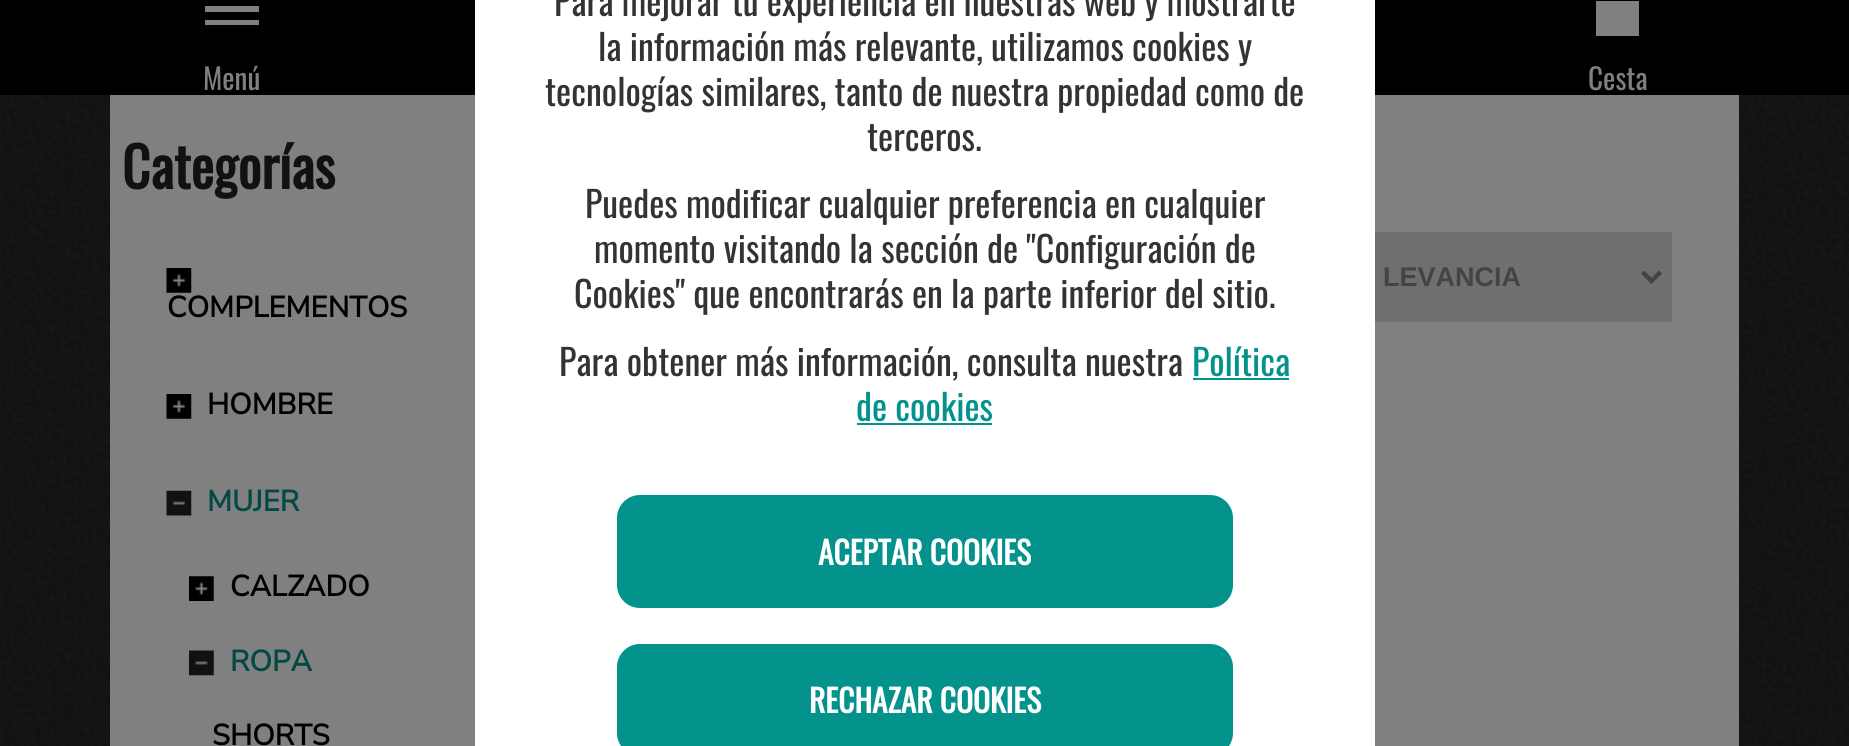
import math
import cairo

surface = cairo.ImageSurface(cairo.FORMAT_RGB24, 1849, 746)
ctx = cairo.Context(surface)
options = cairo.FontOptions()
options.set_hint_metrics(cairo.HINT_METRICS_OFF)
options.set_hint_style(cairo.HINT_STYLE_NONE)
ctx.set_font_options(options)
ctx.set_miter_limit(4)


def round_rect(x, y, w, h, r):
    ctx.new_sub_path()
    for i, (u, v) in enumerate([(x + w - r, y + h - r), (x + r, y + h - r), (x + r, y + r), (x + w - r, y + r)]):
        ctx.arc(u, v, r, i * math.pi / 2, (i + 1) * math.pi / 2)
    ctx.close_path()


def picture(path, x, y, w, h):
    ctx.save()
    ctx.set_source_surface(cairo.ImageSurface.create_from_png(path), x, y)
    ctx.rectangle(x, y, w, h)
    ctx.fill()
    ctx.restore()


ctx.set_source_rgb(1, 1, 1)
ctx.paint()
picture("img1.png", 0, 95, 1849, 651)
ctx.set_source_rgb(0, 0, 0)
ctx.rectangle(0, 0, 1849, 95)
ctx.fill()
ctx.set_source_rgb(0.502, 0.502, 0.502)
ctx.rectangle(110, 95, 1629, 651)
ctx.fill()
ctx.set_source_rgb(1, 1, 1)
ctx.rectangle(475, 0, 900, 746)
ctx.fill()
ctx.select_font_face("Oswald")
ctx.set_font_size(36)
ctx.set_source_rgb(0.2, 0.2, 0.2)
ctx.move_to(554, 16)
ctx.show_text("Para mejorar tu experiencia en nuestras web y mostrarte")
ctx.move_to(598, 61)
ctx.show_text("la información más relevante, utilizamos cookies y")
ctx.move_to(545, 106)
ctx.show_text("tecnologías similares, tanto de nuestra propiedad como de")
ctx.move_to(867, 151)
ctx.show_text("terceros.")
ctx.move_to(585, 218)
ctx.show_text("Puedes modificar cualquier preferencia en cualquier")
ctx.move_to(594, 263)
ctx.show_text("momento visitando la sección de \"Configuración de")
ctx.move_to(574, 308)
ctx.show_text("Cookies\" que encontrarás en la parte inferior del sitio.")
ctx.move_to(559, 376)
ctx.show_text("Para obtener más información, consulta nuestra")
ctx.set_source_rgb(0.012, 0.573, 0.549)
ctx.move_to(1192, 376)
ctx.show_text("Política")
ctx.rectangle(1193, 378, 96, 2)
ctx.fill()
ctx.move_to(856, 421)
ctx.show_text("de cookies")
ctx.rectangle(857, 423, 135, 2)
ctx.fill()
round_rect(617, 495, 616, 113, 23)
ctx.fill()
ctx.select_font_face("Oswald", cairo.FONT_SLANT_NORMAL, cairo.FONT_WEIGHT_BOLD)
ctx.set_font_size(31.5)
ctx.set_source_rgb(1, 1, 1)
ctx.move_to(818, 565)
ctx.show_text("ACEPTAR COOKIES")
ctx.set_source_rgb(0.012, 0.573, 0.549)
round_rect(617, 644, 616, 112, 23)
ctx.fill()
ctx.set_source_rgb(1, 1, 1)
ctx.move_to(809, 713)
ctx.show_text("RECHAZAR COOKIES")
ctx.set_source_rgb(0.502, 0.502, 0.502)
ctx.new_path()
ctx.move_to(205, 25)
ctx.line_to(259, 25)
ctx.line_to(259, 20)
ctx.line_to(205, 20)
ctx.close_path()
ctx.move_to(205, 12)
ctx.line_to(259, 12)
ctx.line_to(259, 6)
ctx.line_to(205, 6)
ctx.close_path()
ctx.move_to(205, -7)
ctx.line_to(205, -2)
ctx.line_to(259, -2)
ctx.line_to(259, -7)
ctx.close_path()
ctx.fill()
ctx.select_font_face("Oswald")
ctx.set_font_size(29.25)
ctx.move_to(203, 90)
ctx.show_text("Menú")
ctx.rectangle(1596, 1, 43, 35)
ctx.fill()
ctx.move_to(1588, 90)
ctx.show_text("Cesta")
ctx.select_font_face("Oswald", cairo.FONT_SLANT_NORMAL, cairo.FONT_WEIGHT_BOLD)
ctx.set_font_size(55)
ctx.set_source_rgb(0.067, 0.067, 0.067)
ctx.move_to(122, 189)
ctx.show_text("Categorías")
picture("img2.png", 166, 268, 26, 25)
ctx.select_font_face("Nunito Sans", cairo.FONT_SLANT_NORMAL, cairo.FONT_WEIGHT_BOLD)
ctx.set_font_size(29.25)
ctx.set_source_rgb(0, 0, 0)
ctx.move_to(167, 317)
ctx.show_text("COMPLEMENTOS")
picture("img2.png", 166, 394, 26, 25)
ctx.move_to(207, 414)
ctx.show_text("HOMBRE")
picture("img3.png", 166, 490, 26, 26)
ctx.set_source_rgb(0.008, 0.286, 0.275)
ctx.move_to(207, 511)
ctx.show_text("MUJER")
picture("img4.png", 189, 576, 25, 25)
ctx.set_source_rgb(0, 0, 0)
ctx.move_to(230, 596)
ctx.show_text("CALZADO")
picture("img5.png", 189, 650, 25, 26)
ctx.set_source_rgb(0.008, 0.286, 0.275)
ctx.move_to(230, 671)
ctx.show_text("ROPA")
ctx.set_source_rgb(0, 0, 0)
ctx.move_to(212, 745)
ctx.show_text("SHORTS")
ctx.set_source_rgb(0.435, 0.435, 0.435)
ctx.rectangle(1375, 232, 297, 90)
ctx.fill()
ctx.new_path()
ctx.move_to(1642.5, 272)
ctx.line_to(1651.5, 281)
ctx.line_to(1660.5, 272)
ctx.set_source_rgb(0.267, 0.267, 0.267)
ctx.set_line_width(4.5)
ctx.stroke()
ctx.select_font_face("Liberation Sans", cairo.FONT_SLANT_NORMAL, cairo.FONT_WEIGHT_BOLD)
ctx.set_font_size(27)
ctx.move_to(1383, 286)
ctx.show_text("LEVANCIA")
surface.write_to_png("page.png")
